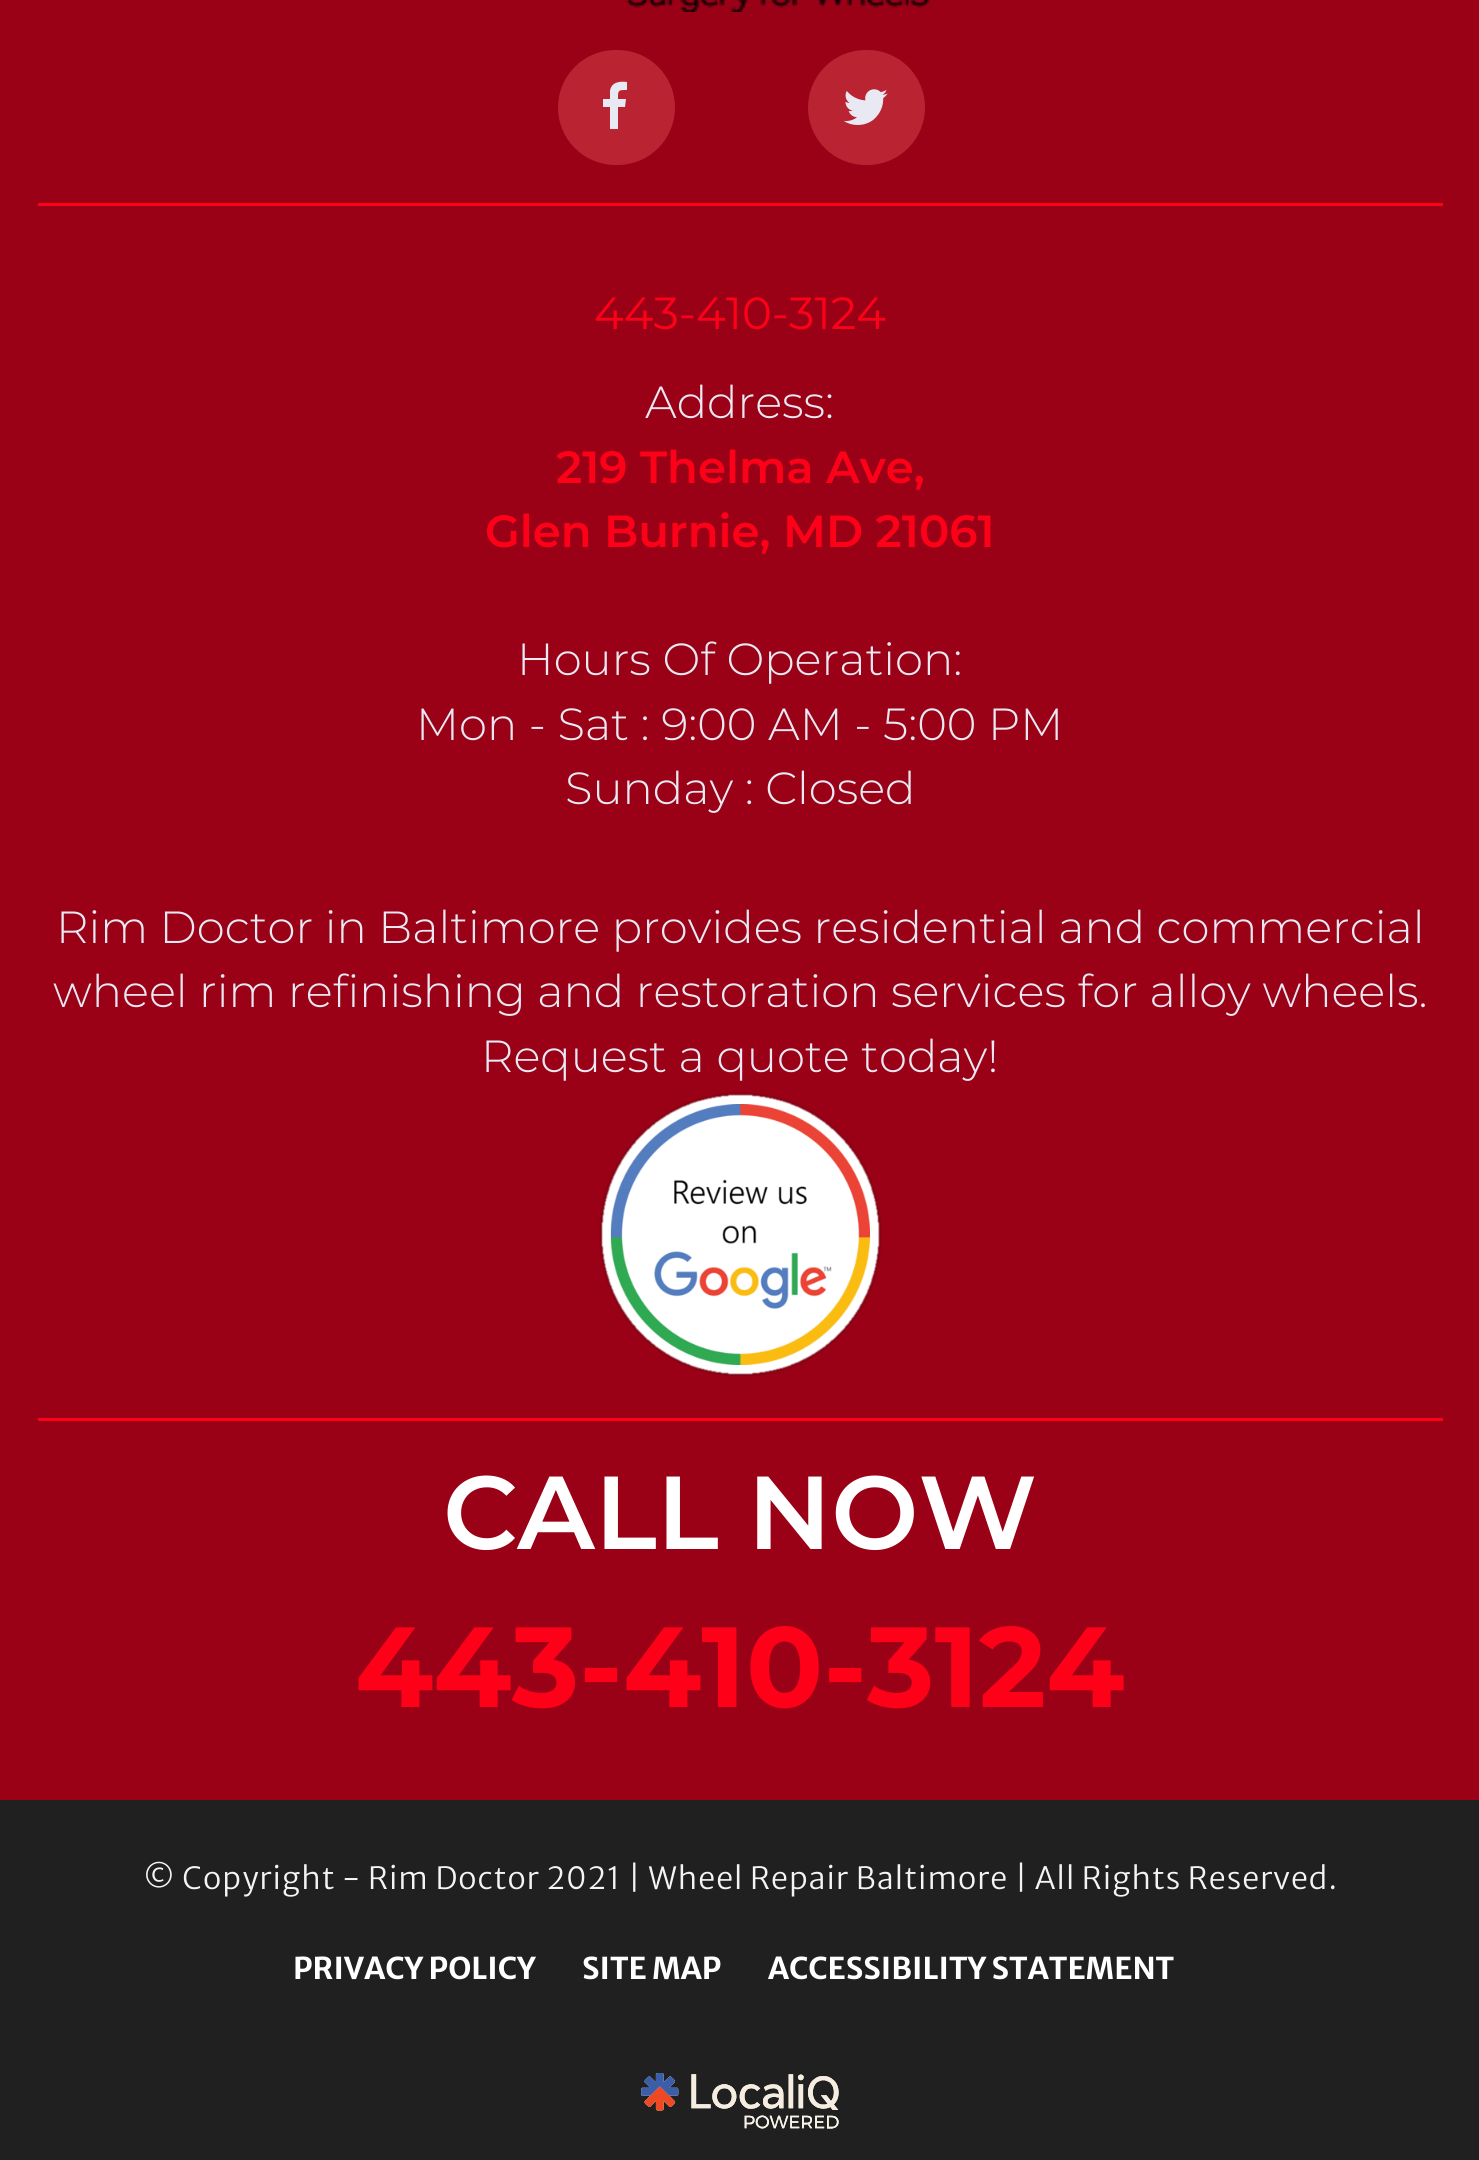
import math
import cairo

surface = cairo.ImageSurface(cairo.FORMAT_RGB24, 1479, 2160)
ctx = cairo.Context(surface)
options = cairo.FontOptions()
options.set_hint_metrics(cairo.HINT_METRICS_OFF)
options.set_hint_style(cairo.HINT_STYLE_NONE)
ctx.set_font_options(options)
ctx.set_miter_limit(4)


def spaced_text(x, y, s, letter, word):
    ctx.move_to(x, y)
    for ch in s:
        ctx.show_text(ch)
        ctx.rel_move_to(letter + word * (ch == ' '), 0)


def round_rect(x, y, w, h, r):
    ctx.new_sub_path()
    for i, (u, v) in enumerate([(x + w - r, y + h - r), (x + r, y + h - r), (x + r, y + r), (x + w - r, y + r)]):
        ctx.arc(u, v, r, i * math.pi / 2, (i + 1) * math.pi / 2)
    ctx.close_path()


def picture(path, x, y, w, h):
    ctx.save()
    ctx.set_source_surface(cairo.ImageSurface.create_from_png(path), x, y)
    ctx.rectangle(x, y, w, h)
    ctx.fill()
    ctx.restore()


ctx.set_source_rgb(0.604, 0.004, 0.086)
ctx.paint()
ctx.set_source_rgb(1, 0, 0.098)
ctx.rectangle(38, 203, 1405, 3)
ctx.fill()
picture("img1.png", 626, 0, 304, 12)
ctx.set_source_rgb(0.729, 0.137, 0.192)
round_rect(558, 50, 117, 115, 57.5)
ctx.fill()
ctx.set_source_rgb(0.91, 0.914, 0.953)
ctx.new_path()
ctx.move_to(627, 82)
ctx.line_to(627, 90)
ctx.curve_to(618, 90, 618, 90, 618, 99)
ctx.line_to(626, 99)
ctx.line_to(625, 107)
ctx.line_to(618, 107)
ctx.line_to(618, 129)
ctx.line_to(610, 129)
ctx.line_to(610, 107)
ctx.line_to(603, 107)
ctx.line_to(603, 99)
ctx.line_to(610, 99)
ctx.line_to(610, 91)
ctx.curve_to(611, 82, 620, 81, 627, 82)
ctx.close_path()
ctx.fill()
ctx.set_source_rgb(0.729, 0.137, 0.192)
round_rect(808, 50, 117, 115, 57.5)
ctx.fill()
picture("img2.png", 844, 89, 44, 36)
ctx.select_font_face("Montserrat")
ctx.set_font_size(45)
ctx.set_source_rgb(1, 0, 0.098)
ctx.move_to(594, 329)
ctx.show_text("443-410-3124")
ctx.select_font_face("Montserrat Light")
ctx.set_source_rgb(0.91, 0.914, 0.953)
ctx.move_to(645, 418)
ctx.show_text("Address:")
ctx.select_font_face("Montserrat SemiBold")
ctx.set_source_rgb(1, 0, 0.098)
ctx.move_to(556, 483)
ctx.show_text("219 Thelma Ave,")
ctx.move_to(485, 547)
ctx.show_text("Glen Burnie, MD 21061")
ctx.select_font_face("Montserrat Light")
ctx.set_source_rgb(0.91, 0.914, 0.953)
ctx.move_to(517, 675)
ctx.show_text("Hours Of Operation:")
ctx.move_to(416, 740)
ctx.show_text("Mon - Sat : 9:00 AM - 5:00 PM")
ctx.move_to(565, 804)
ctx.show_text("Sunday : Closed")
ctx.move_to(56, 943)
ctx.show_text("Rim Doctor in Baltimore provides residential and commercial")
ctx.move_to(53, 1007)
ctx.show_text("wheel rim refinishing and restoration services for alloy wheels.")
ctx.move_to(481, 1072)
ctx.show_text("Request a quote today!")
picture("img3.png", 599, 1092, 283, 285)
ctx.set_source_rgb(1, 0, 0.098)
ctx.rectangle(38, 1418, 1405, 3)
ctx.fill()
ctx.select_font_face("Montserrat SemiBold")
ctx.set_font_size(103.5)
ctx.set_source_rgb(1, 1, 1)
ctx.move_to(443, 1549)
ctx.show_text("CALL NOW")
ctx.select_font_face("Montserrat", cairo.FONT_SLANT_NORMAL, cairo.FONT_WEIGHT_BOLD)
ctx.set_font_size(113.75)
ctx.set_source_rgb(1, 0, 0.098)
ctx.move_to(355, 1707)
ctx.show_text("443-410-3124")
ctx.set_source_rgb(0.125, 0.125, 0.125)
ctx.rectangle(0, 1800, 1479, 360)
ctx.fill()
ctx.select_font_face("Merriweather Sans Light")
ctx.set_font_size(30.5)
ctx.set_source_rgb(0.957, 0.957, 0.957)
spaced_text(143, 1889, "© Copyright - Rim Doctor 2021 | Wheel Repair Baltimore | All Rights Reserved.", 1, 0)
ctx.select_font_face("Merriweather Sans", cairo.FONT_SLANT_NORMAL, cairo.FONT_WEIGHT_BOLD)
ctx.set_font_size(30)
ctx.set_source_rgb(1, 1, 1)
ctx.move_to(293, 1979)
ctx.show_text("PRIVACY POLICY")
ctx.move_to(582, 1979)
ctx.show_text("SITE MAP")
ctx.move_to(768, 1979)
ctx.show_text("ACCESSIBILITY STATEMENT")
picture("img4.png", 641, 2073, 198, 56)
surface.write_to_png("page.png")
